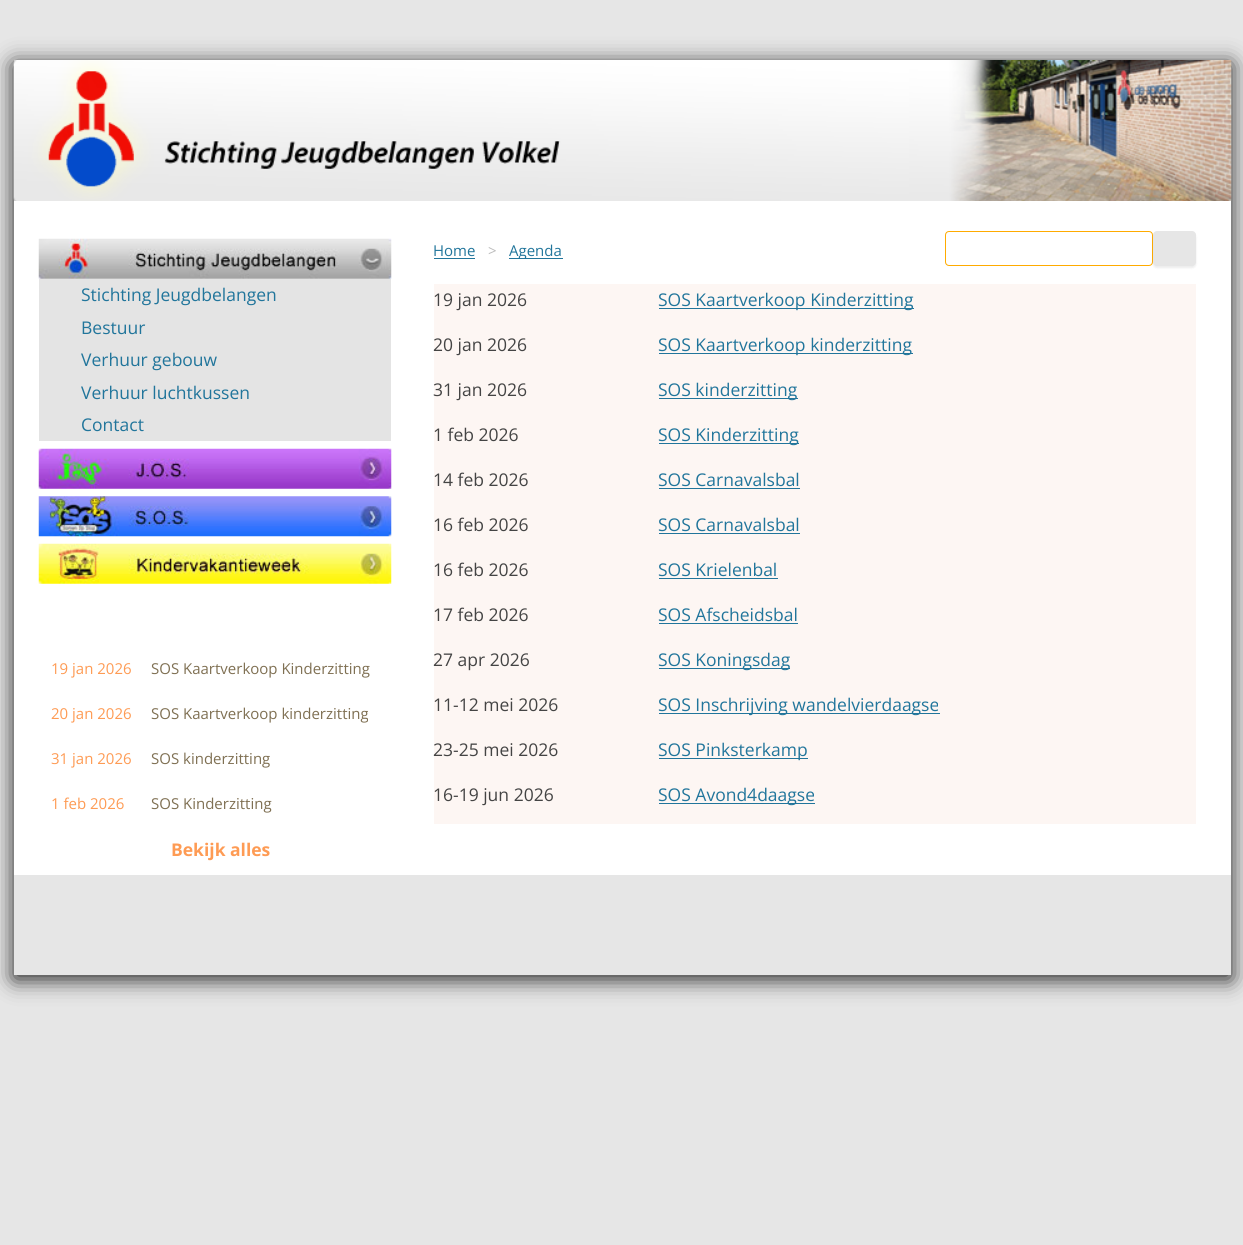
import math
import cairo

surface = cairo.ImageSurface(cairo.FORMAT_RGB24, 1243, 1245)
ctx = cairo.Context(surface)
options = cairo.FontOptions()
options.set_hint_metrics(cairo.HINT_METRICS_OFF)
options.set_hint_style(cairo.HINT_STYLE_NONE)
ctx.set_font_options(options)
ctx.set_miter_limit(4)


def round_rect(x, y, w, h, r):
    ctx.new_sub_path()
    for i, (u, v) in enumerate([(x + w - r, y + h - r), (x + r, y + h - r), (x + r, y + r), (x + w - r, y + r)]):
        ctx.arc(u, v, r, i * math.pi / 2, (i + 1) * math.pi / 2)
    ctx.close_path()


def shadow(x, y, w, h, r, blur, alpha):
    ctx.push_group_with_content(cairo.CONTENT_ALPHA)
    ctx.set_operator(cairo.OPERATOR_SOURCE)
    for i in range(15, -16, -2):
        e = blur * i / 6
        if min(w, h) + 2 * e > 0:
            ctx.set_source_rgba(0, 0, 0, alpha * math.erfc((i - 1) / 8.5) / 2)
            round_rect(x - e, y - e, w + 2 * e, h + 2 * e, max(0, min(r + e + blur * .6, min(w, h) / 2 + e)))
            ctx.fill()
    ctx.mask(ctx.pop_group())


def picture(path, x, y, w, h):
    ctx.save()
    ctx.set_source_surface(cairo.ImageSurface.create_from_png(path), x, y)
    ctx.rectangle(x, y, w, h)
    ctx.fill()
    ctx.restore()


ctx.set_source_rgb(0.902, 0.902, 0.902)
ctx.paint()
ctx.save()
ctx.set_fill_rule(cairo.FILL_RULE_EVEN_ODD)
ctx.new_path()
ctx.move_to(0, 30)
ctx.line_to(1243, 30)
ctx.line_to(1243, 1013)
ctx.line_to(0, 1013)
ctx.close_path()
ctx.move_to(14, 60)
ctx.line_to(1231, 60)
ctx.line_to(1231, 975)
ctx.line_to(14, 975)
ctx.close_path()
ctx.clip()
ctx.set_source_rgb(0.039, 0.039, 0.039)
shadow(14, 64, 1217, 915, 0, 11, 0.9)
ctx.restore()
picture("img1.png", 13, 60, 1219, 142)
ctx.set_source_rgb(1, 1, 1)
ctx.rectangle(14, 201, 1217, 674)
ctx.fill()
picture("img2.png", 38, 238, 354, 41)
ctx.set_source_rgb(0.894, 0.894, 0.894)
ctx.rectangle(39, 279, 352, 162)
ctx.fill()
ctx.select_font_face("Open Sans")
ctx.set_font_size(17.5)
ctx.set_source_rgb(0.129, 0.459, 0.608)
ctx.move_to(81, 301)
ctx.show_text("Stichting Jeugdbelangen")
ctx.move_to(81, 334)
ctx.show_text("Bestuur")
ctx.move_to(81, 366)
ctx.show_text("Verhuur gebouw")
ctx.move_to(81, 399)
ctx.show_text("Verhuur luchtkussen")
ctx.move_to(81, 431)
ctx.show_text("Contact")
picture("img3.png", 38, 448, 354, 41)
picture("img4.png", 38, 496, 354, 41)
picture("img5.png", 38, 543, 354, 41)
ctx.set_font_size(15)
ctx.set_source_rgb(0.996, 0.608, 0.329)
ctx.move_to(51, 674)
ctx.show_text("19 jan 2026")
ctx.set_source_rgb(0.498, 0.439, 0.325)
ctx.move_to(151, 674)
ctx.show_text("SOS Kaartverkoop Kinderzitting")
ctx.set_source_rgb(0.996, 0.608, 0.329)
ctx.move_to(51, 719)
ctx.show_text("20 jan 2026")
ctx.set_source_rgb(0.498, 0.439, 0.325)
ctx.move_to(151, 719)
ctx.show_text("SOS Kaartverkoop kinderzitting")
ctx.set_source_rgb(0.996, 0.608, 0.329)
ctx.move_to(51, 764)
ctx.show_text("31 jan 2026")
ctx.set_source_rgb(0.498, 0.439, 0.325)
ctx.move_to(151, 764)
ctx.show_text("SOS kinderzitting")
ctx.set_source_rgb(0.996, 0.608, 0.329)
ctx.move_to(51, 809)
ctx.show_text("1 feb 2026")
ctx.set_source_rgb(0.498, 0.439, 0.325)
ctx.move_to(151, 809)
ctx.show_text("SOS Kinderzitting")
ctx.select_font_face("Open Sans", cairo.FONT_SLANT_NORMAL, cairo.FONT_WEIGHT_BOLD)
ctx.set_font_size(17.5)
ctx.set_source_rgb(0.996, 0.608, 0.329)
ctx.move_to(171, 856)
ctx.show_text("Bekijk alles")
ctx.select_font_face("Open Sans")
ctx.set_font_size(15)
ctx.set_source_rgb(0.129, 0.459, 0.608)
ctx.move_to(433, 256)
ctx.show_text("Home")
ctx.rectangle(434, 258, 41, 1)
ctx.fill()
ctx.set_source_rgb(0.733, 0.733, 0.733)
ctx.move_to(488, 256)
ctx.show_text(">")
ctx.set_source_rgb(0.129, 0.459, 0.608)
ctx.rectangle(509, 258, 54, 1)
ctx.fill()
ctx.save()
ctx.rectangle(434, 244, 141, 15)
ctx.clip()
ctx.move_to(509, 256)
ctx.show_text("Agenda")
ctx.restore()
round_rect(945.5, 231.5, 207, 34, 3.5)
ctx.set_source_rgb(1, 0.671, 0)
ctx.set_line_width(1)
ctx.stroke()
ctx.set_source_rgb(0.251, 0.251, 0.251)
shadow(1153, 233, 43, 35, 4, 1, 0.1)
ctx.set_source_rgb(0.902, 0.902, 0.902)
round_rect(1153, 231, 43, 35, 4)
ctx.fill()
ctx.set_source_rgb(0.992, 0.961, 0.953)
ctx.rectangle(434, 284, 762, 540)
ctx.fill()
ctx.set_font_size(17.5)
ctx.set_source_rgb(0.267, 0.267, 0.267)
ctx.move_to(433, 306)
ctx.show_text("19 jan 2026")
ctx.set_source_rgb(0.129, 0.459, 0.608)
ctx.rectangle(659, 308, 255, 1)
ctx.fill()
ctx.move_to(658, 306)
ctx.show_text("SOS Kaartverkoop Kinderzitting")
ctx.set_source_rgb(0.267, 0.267, 0.267)
ctx.move_to(433, 351)
ctx.show_text("20 jan 2026")
ctx.set_source_rgb(0.129, 0.459, 0.608)
ctx.rectangle(659, 353, 254, 1)
ctx.fill()
ctx.move_to(658, 351)
ctx.show_text("SOS Kaartverkoop kinderzitting")
ctx.set_source_rgb(0.267, 0.267, 0.267)
ctx.move_to(433, 396)
ctx.show_text("31 jan 2026")
ctx.set_source_rgb(0.129, 0.459, 0.608)
ctx.rectangle(659, 398, 139, 1)
ctx.fill()
ctx.move_to(658, 396)
ctx.show_text("SOS kinderzitting")
ctx.set_source_rgb(0.267, 0.267, 0.267)
ctx.move_to(433, 441)
ctx.show_text("1 feb 2026")
ctx.set_source_rgb(0.129, 0.459, 0.608)
ctx.rectangle(659, 443, 140, 1)
ctx.fill()
ctx.move_to(658, 441)
ctx.show_text("SOS Kinderzitting")
ctx.set_source_rgb(0.267, 0.267, 0.267)
ctx.move_to(433, 486)
ctx.show_text("14 feb 2026")
ctx.set_source_rgb(0.129, 0.459, 0.608)
ctx.move_to(658, 486)
ctx.show_text("SOS Carnavalsbal")
ctx.rectangle(659, 488, 141, 1)
ctx.fill()
ctx.set_source_rgb(0.267, 0.267, 0.267)
ctx.move_to(433, 531)
ctx.show_text("16 feb 2026")
ctx.set_source_rgb(0.129, 0.459, 0.608)
ctx.move_to(658, 531)
ctx.show_text("SOS Carnavalsbal")
ctx.rectangle(659, 533, 141, 1)
ctx.fill()
ctx.set_source_rgb(0.267, 0.267, 0.267)
ctx.move_to(433, 576)
ctx.show_text("16 feb 2026")
ctx.set_source_rgb(0.129, 0.459, 0.608)
ctx.move_to(658, 576)
ctx.show_text("SOS Krielenbal")
ctx.rectangle(659, 578, 119, 1)
ctx.fill()
ctx.set_source_rgb(0.267, 0.267, 0.267)
ctx.move_to(433, 621)
ctx.show_text("17 feb 2026")
ctx.set_source_rgb(0.129, 0.459, 0.608)
ctx.move_to(658, 621)
ctx.show_text("SOS Afscheidsbal")
ctx.rectangle(659, 623, 139, 1)
ctx.fill()
ctx.set_source_rgb(0.267, 0.267, 0.267)
ctx.move_to(433, 666)
ctx.show_text("27 apr 2026")
ctx.set_source_rgb(0.129, 0.459, 0.608)
ctx.rectangle(659, 668, 131, 1)
ctx.fill()
ctx.move_to(658, 666)
ctx.show_text("SOS Koningsdag")
ctx.set_source_rgb(0.267, 0.267, 0.267)
ctx.move_to(433, 711)
ctx.show_text("11-12 mei 2026")
ctx.set_source_rgb(0.129, 0.459, 0.608)
ctx.rectangle(659, 713, 281, 1)
ctx.fill()
ctx.move_to(658, 711)
ctx.show_text("SOS Inschrijving wandelvierdaagse")
ctx.set_source_rgb(0.267, 0.267, 0.267)
ctx.move_to(433, 756)
ctx.show_text("23-25 mei 2026")
ctx.set_source_rgb(0.129, 0.459, 0.608)
ctx.rectangle(659, 758, 149, 1)
ctx.fill()
ctx.move_to(658, 756)
ctx.show_text("SOS Pinksterkamp")
ctx.set_source_rgb(0.267, 0.267, 0.267)
ctx.move_to(433, 801)
ctx.show_text("16-19 jun 2026")
ctx.set_source_rgb(0.129, 0.459, 0.608)
ctx.rectangle(659, 803, 156, 1)
ctx.fill()
ctx.move_to(658, 801)
ctx.show_text("SOS Avond4daagse")
surface.write_to_png("page.png")
